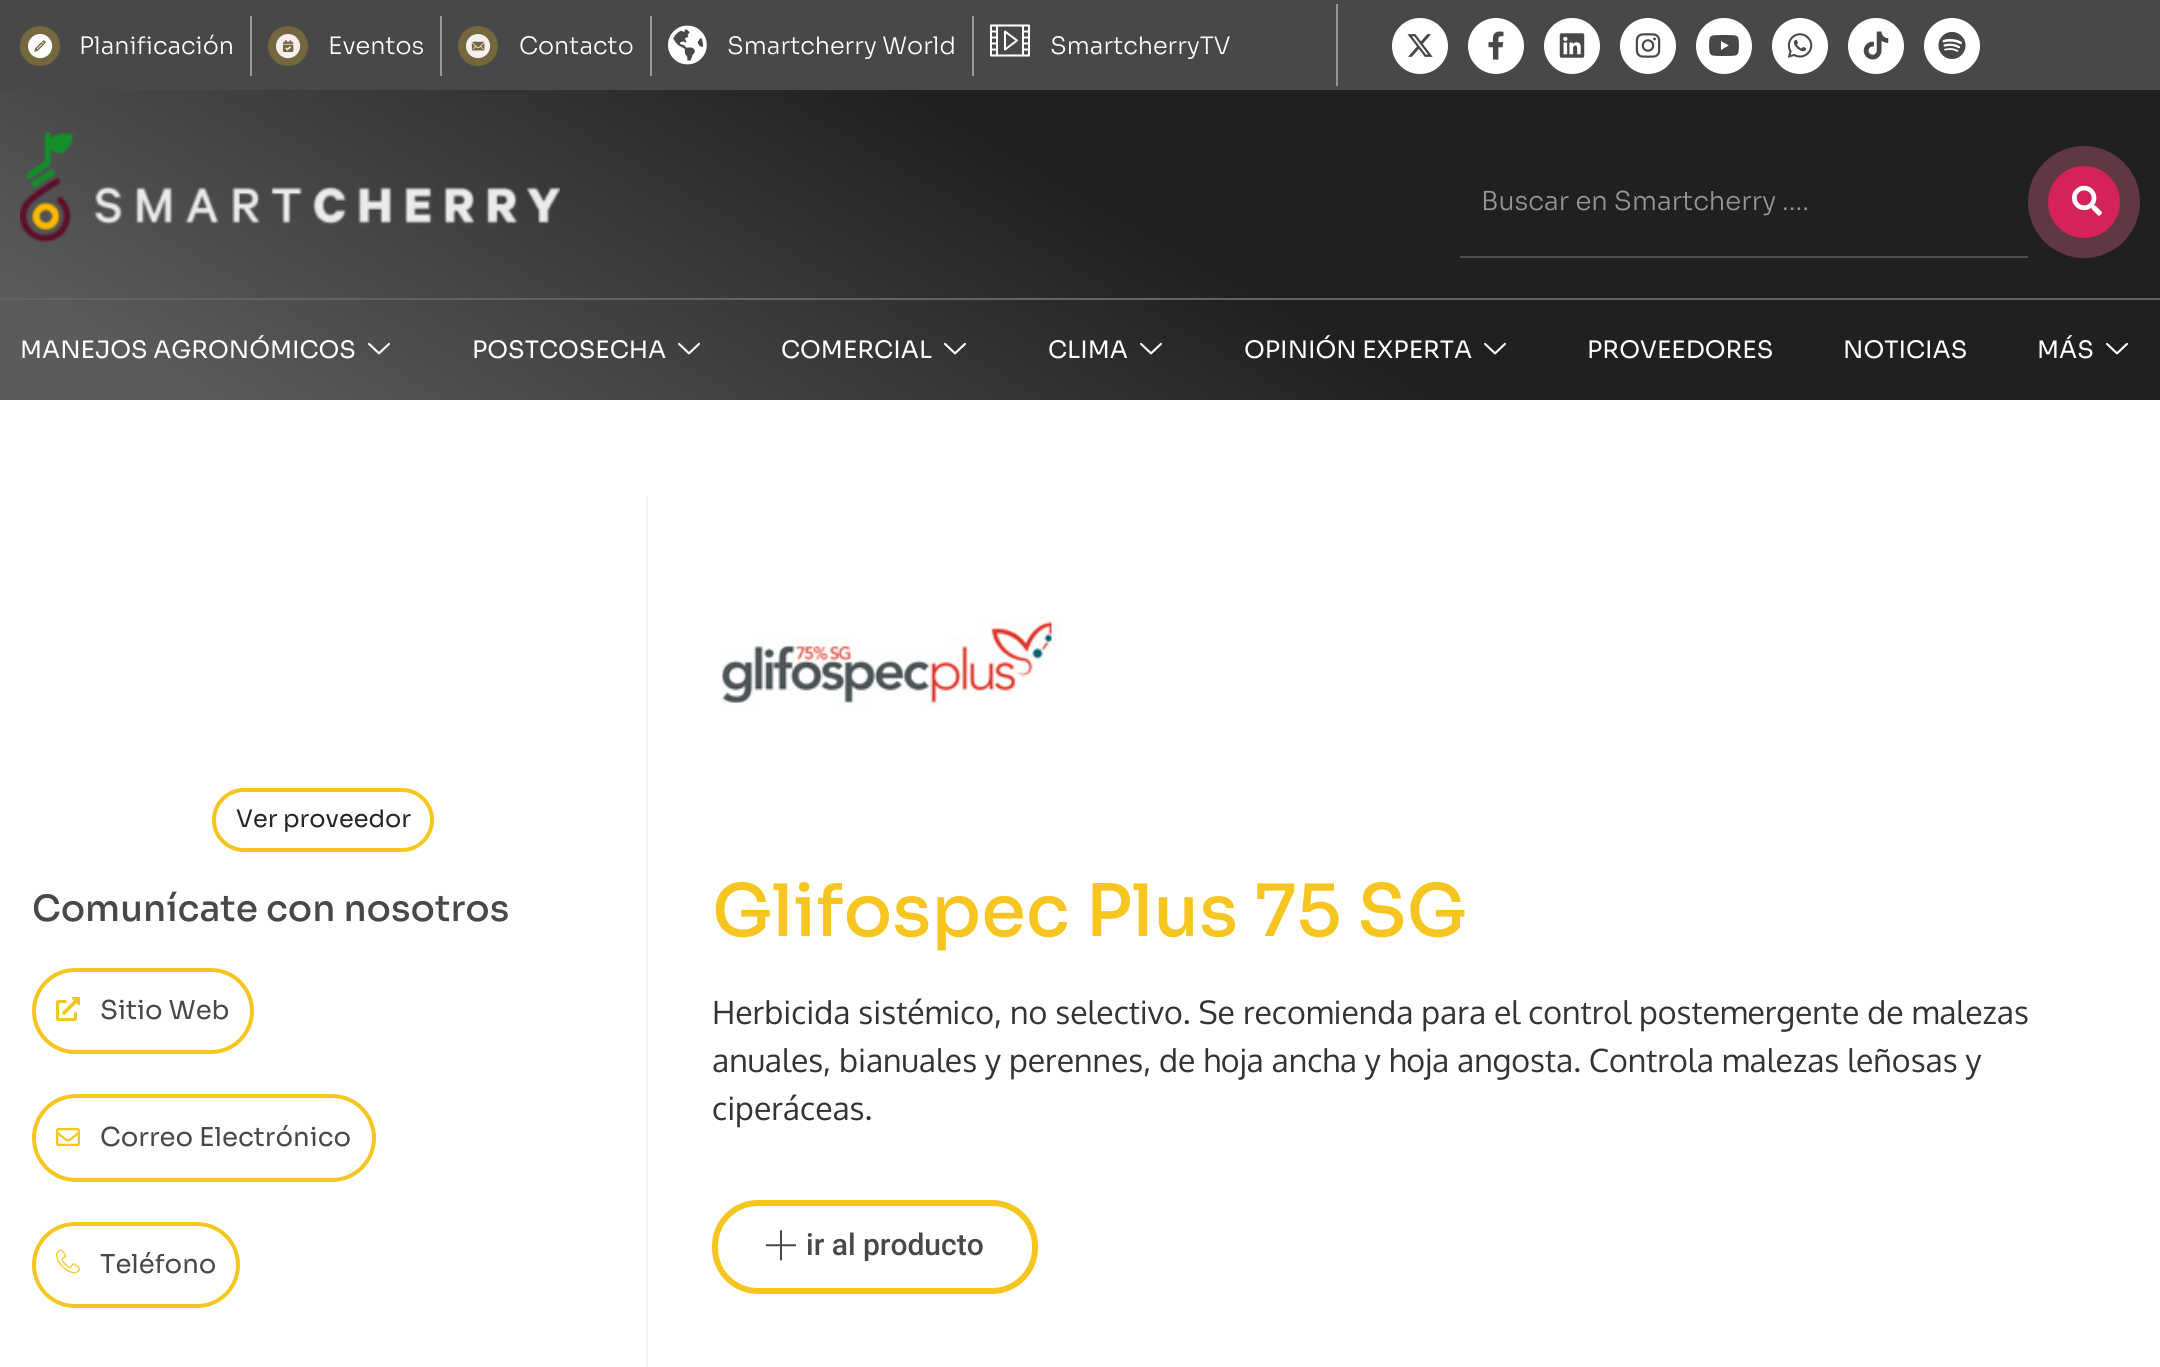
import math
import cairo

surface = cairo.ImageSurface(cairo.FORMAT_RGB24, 2160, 1367)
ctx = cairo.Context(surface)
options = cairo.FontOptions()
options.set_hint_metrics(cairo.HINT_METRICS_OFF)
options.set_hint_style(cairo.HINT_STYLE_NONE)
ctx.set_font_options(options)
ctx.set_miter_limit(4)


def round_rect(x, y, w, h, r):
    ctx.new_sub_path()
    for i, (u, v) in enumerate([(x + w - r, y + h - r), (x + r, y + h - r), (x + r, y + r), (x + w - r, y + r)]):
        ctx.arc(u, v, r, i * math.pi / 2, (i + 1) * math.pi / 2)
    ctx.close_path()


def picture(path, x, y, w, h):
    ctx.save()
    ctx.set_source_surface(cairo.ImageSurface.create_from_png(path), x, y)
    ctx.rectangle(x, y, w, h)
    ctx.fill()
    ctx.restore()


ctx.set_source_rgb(1, 1, 1)
ctx.paint()
ctx.set_source_rgb(0.282, 0.282, 0.282)
ctx.rectangle(0, 0, 2160, 90)
ctx.fill()
ctx.set_source_rgb(0.584, 0.584, 0.584)
ctx.rectangle(1336, 4, 2, 82)
ctx.fill()
picture("img1.png", 20, 26, 40, 40)
ctx.select_font_face("Sora Light")
ctx.set_font_size(24)
ctx.set_source_rgb(1, 1, 1)
ctx.move_to(79, 54)
ctx.show_text("Planificación")
ctx.set_source_rgb(0.6, 0.6, 0.6)
ctx.rectangle(250, 16, 2, 60)
ctx.fill()
picture("img2.png", 268, 26, 40, 40)
ctx.set_source_rgb(1, 1, 1)
ctx.move_to(328, 54)
ctx.show_text("Eventos")
ctx.set_source_rgb(0.6, 0.6, 0.6)
ctx.rectangle(440, 16, 2, 60)
ctx.fill()
picture("img3.png", 458, 26, 40, 40)
ctx.set_source_rgb(1, 1, 1)
ctx.move_to(519, 54)
ctx.show_text("Contacto")
ctx.set_source_rgb(0.6, 0.6, 0.6)
ctx.rectangle(650, 16, 2, 60)
ctx.fill()
picture("img4.png", 668, 25, 39, 40)
ctx.set_source_rgb(1, 1, 1)
ctx.move_to(727, 54)
ctx.show_text("Smartcherry World")
ctx.set_source_rgb(0.6, 0.6, 0.6)
ctx.rectangle(972, 16, 2, 60)
ctx.fill()
picture("img5.png", 990, 24, 40, 33)
ctx.set_source_rgb(1, 1, 1)
ctx.move_to(1050, 54)
ctx.show_text("SmartcherryTV")
ctx.new_path()
ctx.arc(1420, 46, 28, 0, 2 * math.pi)
ctx.fill()
picture("img6.png", 1407, 34, 26, 23)
ctx.arc(1496, 46, 28, 0, 2 * math.pi)
ctx.fill()
picture("img7.png", 1488, 31, 16, 29)
ctx.arc(1572, 46, 28, 0, 2 * math.pi)
ctx.fill()
picture("img8.png", 1559, 33, 26, 25)
ctx.arc(1648, 46, 28, 0, 2 * math.pi)
ctx.fill()
picture("img9.png", 1635, 33, 26, 25)
ctx.arc(1724, 46, 28, 0, 2 * math.pi)
ctx.fill()
picture("img10.png", 1709, 35, 30, 21)
ctx.arc(1800, 46, 28, 0, 2 * math.pi)
ctx.fill()
picture("img11.png", 1787, 33, 26, 25)
ctx.arc(1876, 46, 28, 0, 2 * math.pi)
ctx.fill()
picture("img12.png", 1863, 31, 26, 29)
ctx.arc(1952, 46, 28, 0, 2 * math.pi)
ctx.fill()
picture("img13.png", 1938, 31, 28, 29)
gradient = cairo.LinearGradient(1417, -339, 743, 829)
gradient.add_color_stop_rgba(0.46, 0.125, 0.125, 0.125, 1)
gradient.add_color_stop_rgba(0.93, 0.357, 0.357, 0.357, 1)
ctx.set_source(gradient)
ctx.rectangle(0, 90, 2160, 310)
ctx.fill()
picture("img14.png", 20, 132, 540, 110)
ctx.set_source_rgb(0.318, 0.318, 0.318)
ctx.rectangle(1460, 256, 568, 2)
ctx.fill()
ctx.set_font_size(26)
ctx.set_source_rgb(0.588, 0.588, 0.588)
ctx.move_to(1481, 210)
ctx.show_text("Buscar en Smartcherry ....")
ctx.set_source_rgb(0.831, 0.133, 0.353)
ctx.new_path()
ctx.arc(2084, 202, 46, 0, 2 * math.pi)
ctx.fill_preserve()
ctx.set_source_rgb(0.376, 0.22, 0.267)
ctx.set_line_width(20)
ctx.stroke()
picture("img15.png", 2072, 185, 30, 31)
ctx.set_source_rgb(0.388, 0.388, 0.388)
ctx.rectangle(0, 298, 2160, 2)
ctx.fill()
ctx.select_font_face("Sora")
ctx.set_font_size(24)
ctx.set_source_rgb(1, 1, 1)
ctx.move_to(20, 358)
ctx.show_text("MANEJOS AGRONÓMICOS")
picture("img16.png", 368, 342, 22, 13)
ctx.move_to(472, 358)
ctx.show_text("POSTCOSECHA")
picture("img17.png", 678, 342, 22, 13)
ctx.move_to(781, 358)
ctx.show_text("COMERCIAL")
picture("img18.png", 944, 342, 22, 13)
ctx.move_to(1048, 358)
ctx.show_text("CLIMA")
picture("img19.png", 1140, 342, 22, 13)
ctx.move_to(1244, 358)
ctx.show_text("OPINIÓN EXPERTA")
picture("img20.png", 1484, 342, 22, 13)
ctx.move_to(1587, 358)
ctx.show_text("PROVEEDORES")
ctx.move_to(1843, 358)
ctx.show_text("NOTICIAS")
ctx.move_to(2037, 358)
ctx.show_text("MÁS")
picture("img20.png", 2106, 342, 22, 13)
ctx.set_source_rgb(0.957, 0.957, 0.957)
ctx.rectangle(646, 496, 2, 871)
ctx.fill()
round_rect(214, 790, 218, 60, 30)
ctx.set_source_rgb(0.965, 0.773, 0.122)
ctx.set_line_width(4)
ctx.stroke()
ctx.set_source_rgb(0.141, 0.141, 0.141)
ctx.move_to(236, 827)
ctx.show_text("Ver proveedor")
ctx.select_font_face("Sora Medium")
ctx.set_font_size(36)
ctx.set_source_rgb(0.282, 0.282, 0.282)
ctx.move_to(32, 921)
ctx.show_text("Comunícate con nosotros")
round_rect(34, 970, 218, 82, 41)
ctx.set_source_rgb(0.965, 0.773, 0.122)
ctx.stroke()
picture("img21.png", 56, 997, 24, 24)
ctx.select_font_face("Sora")
ctx.set_font_size(26)
ctx.set_source_rgb(0.282, 0.282, 0.282)
ctx.move_to(100, 1019)
ctx.show_text("Sitio Web")
round_rect(34, 1096, 340, 84, 42)
ctx.set_source_rgb(0.965, 0.773, 0.122)
ctx.stroke()
picture("img22.png", 56, 1128, 24, 18)
ctx.set_source_rgb(0.282, 0.282, 0.282)
ctx.move_to(100, 1146)
ctx.show_text("Correo Electrónico")
round_rect(34, 1224, 204, 82, 41)
ctx.set_source_rgb(0.965, 0.773, 0.122)
ctx.stroke()
picture("img23.png", 56, 1249, 24, 25)
ctx.set_source_rgb(0.282, 0.282, 0.282)
ctx.move_to(100, 1273)
ctx.show_text("Teléfono")
picture("img24.png", 721, 621, 341, 85)
ctx.select_font_face("Sora Medium")
ctx.set_font_size(72)
ctx.set_source_rgb(0.965, 0.773, 0.122)
ctx.move_to(712, 936)
ctx.show_text("Glifospec Plus 75 SG")
ctx.select_font_face("Oxygen")
ctx.set_font_size(32)
ctx.set_source_rgb(0.2, 0.2, 0.2)
ctx.move_to(712, 1024)
ctx.show_text("Herbicida sistémico, no selectivo. Se recomienda para el control postemergente de malezas")
ctx.move_to(712, 1072)
ctx.show_text("anuales, bianuales y perennes, de hoja ancha y hoja angosta. Controla malezas leñosas y")
ctx.move_to(712, 1120)
ctx.show_text("ciperáceas.")
round_rect(715, 1203, 320, 88, 43)
ctx.set_source_rgb(0.965, 0.773, 0.122)
ctx.set_line_width(6)
ctx.stroke()
picture("img25.png", 766, 1230, 30, 31)
ctx.select_font_face("Roboto Medium")
ctx.set_font_size(30)
ctx.set_source_rgb(0.282, 0.282, 0.282)
ctx.move_to(806, 1255)
ctx.show_text("ir al producto")
surface.write_to_png("page.png")
